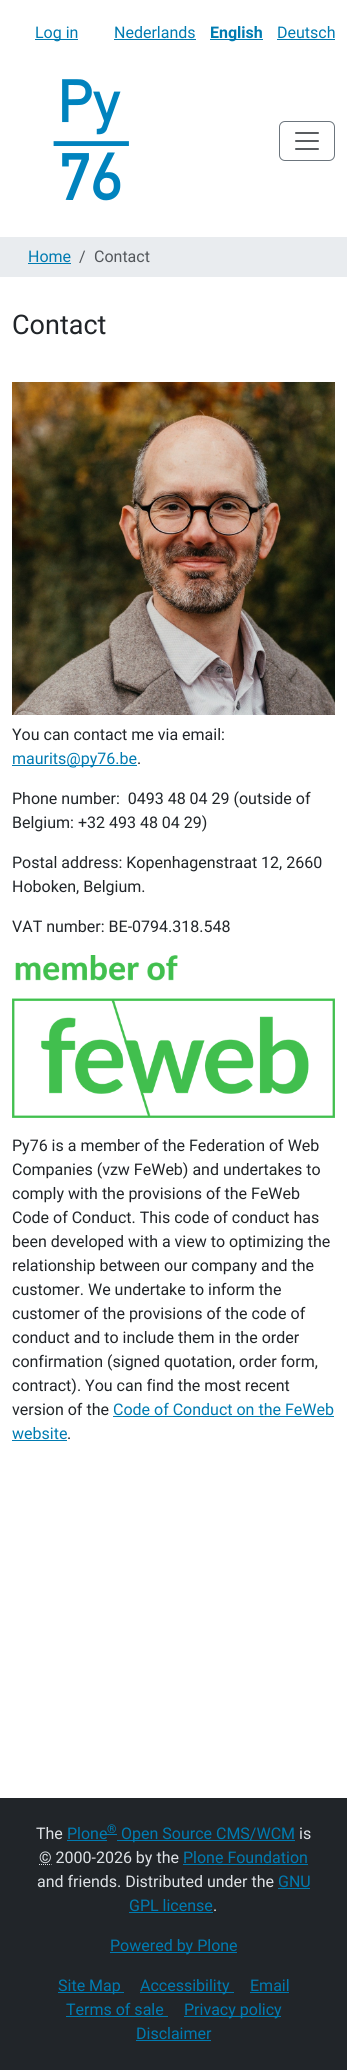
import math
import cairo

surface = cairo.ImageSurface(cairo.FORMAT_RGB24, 347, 2070)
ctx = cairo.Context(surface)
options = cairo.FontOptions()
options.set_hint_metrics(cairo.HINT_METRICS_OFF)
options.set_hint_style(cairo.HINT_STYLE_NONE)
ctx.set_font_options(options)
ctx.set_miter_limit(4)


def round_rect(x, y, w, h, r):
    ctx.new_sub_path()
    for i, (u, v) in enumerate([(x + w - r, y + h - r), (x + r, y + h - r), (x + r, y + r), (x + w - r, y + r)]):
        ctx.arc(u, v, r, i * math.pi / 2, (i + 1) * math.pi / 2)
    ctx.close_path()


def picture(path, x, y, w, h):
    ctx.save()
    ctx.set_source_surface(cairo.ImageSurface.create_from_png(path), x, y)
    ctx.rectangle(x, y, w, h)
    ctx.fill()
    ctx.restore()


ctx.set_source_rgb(1, 1, 1)
ctx.paint()
ctx.set_source_rgb(0, 0.482, 0.694)
ctx.rectangle(35, 39, 43, 1)
ctx.fill()
ctx.select_font_face("Roboto")
ctx.set_font_size(16)
ctx.move_to(35, 38)
ctx.show_text("Log in")
ctx.move_to(114, 38)
ctx.show_text("Nederlands")
ctx.rectangle(114, 39, 82, 1)
ctx.fill()
ctx.rectangle(210, 39, 53, 1)
ctx.fill()
ctx.select_font_face("Roboto", cairo.FONT_SLANT_NORMAL, cairo.FONT_WEIGHT_BOLD)
ctx.move_to(210, 38)
ctx.show_text("English")
ctx.select_font_face("Roboto")
ctx.move_to(277, 38)
ctx.show_text("Deutsch")
ctx.rectangle(277, 39, 58, 1)
ctx.fill()
picture("img1.png", 53, 79, 76, 122)
round_rect(279.5, 121.5, 55, 39, 5.5)
ctx.set_source_rgb(0.424, 0.459, 0.49)
ctx.set_line_width(1)
ctx.stroke()
picture("img2.png", 295, 132, 24, 18)
ctx.set_source_rgb(0.914, 0.925, 0.937)
ctx.rectangle(0, 237, 347, 40)
ctx.fill()
ctx.set_source_rgb(0, 0.482, 0.694)
ctx.move_to(28, 262)
ctx.show_text("Home")
ctx.rectangle(28, 263, 43, 1)
ctx.fill()
ctx.set_source_rgb(0.325, 0.341, 0.357)
ctx.move_to(79, 262)
ctx.show_text("/")
ctx.move_to(94, 262)
ctx.show_text("Contact")
ctx.set_font_size(27)
ctx.set_source_rgb(0.129, 0.145, 0.161)
ctx.move_to(12, 334)
ctx.show_text("Contact")
picture("img3.png", 12, 382, 323, 333)
ctx.set_font_size(16)
ctx.move_to(12, 740)
ctx.show_text("You can contact me via email:")
ctx.set_source_rgb(0, 0.482, 0.694)
ctx.rectangle(12, 765, 125, 1)
ctx.fill()
ctx.move_to(12, 764)
ctx.show_text("maurits@py76.be")
ctx.set_source_rgb(0.129, 0.145, 0.161)
ctx.move_to(137, 764)
ctx.show_text(".")
ctx.move_to(12, 804)
ctx.show_text("Phone number:  0493 48 04 29 (outside of")
ctx.move_to(12, 828)
ctx.show_text("Belgium: +32 493 48 04 29)")
ctx.move_to(12, 868)
ctx.show_text("Postal address: Kopenhagenstraat 12, 2660")
ctx.move_to(12, 892)
ctx.show_text("Hoboken, Belgium.")
ctx.move_to(12, 932)
ctx.show_text("VAT number: BE-0794.318.548")
picture("img4.png", 12, 955, 323, 163)
ctx.move_to(12, 1151)
ctx.show_text("Py76 is a member of the Federation of Web")
ctx.move_to(12, 1175)
ctx.show_text("Companies (vzw FeWeb) and undertakes to")
ctx.move_to(12, 1199)
ctx.show_text("comply with the provisions of the FeWeb")
ctx.move_to(12, 1223)
ctx.show_text("Code of Conduct. This code of conduct has")
ctx.move_to(12, 1247)
ctx.show_text("been developed with a view to optimizing the")
ctx.move_to(12, 1271)
ctx.show_text("relationship between our company and the")
ctx.move_to(12, 1295)
ctx.show_text("customer. We undertake to inform the")
ctx.move_to(12, 1319)
ctx.show_text("customer of the provisions of the code of")
ctx.move_to(12, 1343)
ctx.show_text("conduct and to include them in the order")
ctx.move_to(12, 1367)
ctx.show_text("confirmation (signed quotation, order form,")
ctx.move_to(12, 1391)
ctx.show_text("contract). You can find the most recent")
ctx.move_to(12, 1415)
ctx.show_text("version of the")
ctx.set_source_rgb(0, 0.482, 0.694)
ctx.move_to(113, 1415)
ctx.show_text("Code of Conduct on the FeWeb")
ctx.rectangle(113, 1416, 221, 1)
ctx.fill()
ctx.move_to(12, 1439)
ctx.show_text("website")
ctx.set_source_rgb(0.129, 0.145, 0.161)
ctx.move_to(67, 1439)
ctx.show_text(".")
ctx.set_source_rgb(0, 0.482, 0.694)
ctx.rectangle(12, 1440, 55, 1)
ctx.fill()
ctx.set_source_rgb(0.129, 0.145, 0.161)
ctx.rectangle(0, 1798, 347, 272)
ctx.fill()
ctx.set_source_rgb(0.871, 0.886, 0.902)
ctx.move_to(36, 1839)
ctx.show_text("The")
ctx.set_source_rgb(0, 0.482, 0.694)
ctx.move_to(67, 1839)
ctx.show_text("Plone")
ctx.rectangle(67, 1840, 40, 1)
ctx.fill()
ctx.rectangle(107, 1834, 10, 1)
ctx.fill()
ctx.set_font_size(12)
ctx.move_to(107, 1833)
ctx.show_text("®")
ctx.rectangle(117, 1840, 178, 1)
ctx.fill()
ctx.set_font_size(16)
ctx.move_to(121, 1839)
ctx.show_text("Open Source CMS/WCM")
ctx.set_source_rgb(0.871, 0.886, 0.902)
ctx.move_to(299, 1839)
ctx.show_text("is")
ctx.new_path()
ctx.move_to(39, 1864.5)
ctx.line_to(51.5, 1864.5)
ctx.set_dash([1, 1])
ctx.stroke()
ctx.move_to(39, 1863)
ctx.show_text("© 2000-2026 by the")
ctx.set_source_rgb(0, 0.482, 0.694)
ctx.move_to(183, 1863)
ctx.show_text("Plone Foundation")
ctx.rectangle(183, 1864, 125, 1)
ctx.fill()
ctx.set_source_rgb(0.871, 0.886, 0.902)
ctx.move_to(37, 1887)
ctx.show_text("and friends. Distributed under the")
ctx.set_source_rgb(0, 0.482, 0.694)
ctx.move_to(278, 1887)
ctx.show_text("GNU")
ctx.rectangle(278, 1888, 32, 1)
ctx.fill()
ctx.move_to(129, 1911)
ctx.show_text("GPL license")
ctx.rectangle(129, 1912, 84, 1)
ctx.fill()
ctx.set_source_rgb(0.871, 0.886, 0.902)
ctx.move_to(213, 1911)
ctx.show_text(".")
ctx.set_source_rgb(0, 0.482, 0.694)
ctx.rectangle(110, 1952, 127, 1)
ctx.fill()
ctx.move_to(110, 1951)
ctx.show_text("Powered by Plone")
ctx.rectangle(58, 1992, 66, 1)
ctx.fill()
ctx.move_to(58, 1991)
ctx.show_text("Site Map")
ctx.rectangle(140, 1992, 94, 1)
ctx.fill()
ctx.move_to(140, 1991)
ctx.show_text("Accessibility")
ctx.move_to(250, 1991)
ctx.show_text("Email")
ctx.rectangle(250, 1992, 39, 1)
ctx.fill()
ctx.move_to(66, 2015)
ctx.show_text("Terms of sale")
ctx.rectangle(66, 2016, 102, 1)
ctx.fill()
ctx.rectangle(184, 2016, 97, 1)
ctx.fill()
ctx.move_to(184, 2015)
ctx.show_text("Privacy policy")
ctx.move_to(136, 2039)
ctx.show_text("Disclaimer")
ctx.rectangle(136, 2040, 75, 1)
ctx.fill()
surface.write_to_png("page.png")
